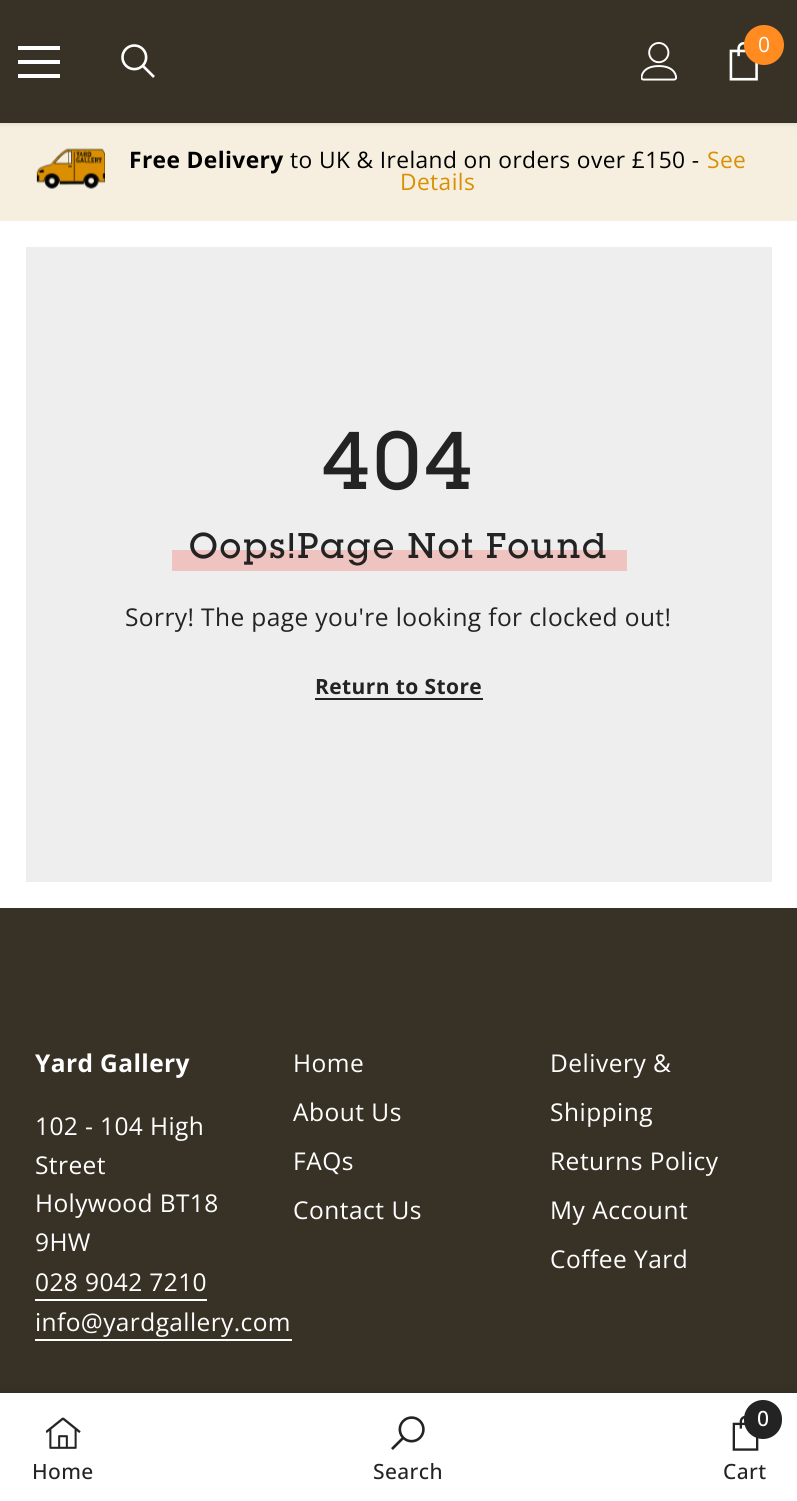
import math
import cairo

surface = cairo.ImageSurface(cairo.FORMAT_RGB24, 797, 1501)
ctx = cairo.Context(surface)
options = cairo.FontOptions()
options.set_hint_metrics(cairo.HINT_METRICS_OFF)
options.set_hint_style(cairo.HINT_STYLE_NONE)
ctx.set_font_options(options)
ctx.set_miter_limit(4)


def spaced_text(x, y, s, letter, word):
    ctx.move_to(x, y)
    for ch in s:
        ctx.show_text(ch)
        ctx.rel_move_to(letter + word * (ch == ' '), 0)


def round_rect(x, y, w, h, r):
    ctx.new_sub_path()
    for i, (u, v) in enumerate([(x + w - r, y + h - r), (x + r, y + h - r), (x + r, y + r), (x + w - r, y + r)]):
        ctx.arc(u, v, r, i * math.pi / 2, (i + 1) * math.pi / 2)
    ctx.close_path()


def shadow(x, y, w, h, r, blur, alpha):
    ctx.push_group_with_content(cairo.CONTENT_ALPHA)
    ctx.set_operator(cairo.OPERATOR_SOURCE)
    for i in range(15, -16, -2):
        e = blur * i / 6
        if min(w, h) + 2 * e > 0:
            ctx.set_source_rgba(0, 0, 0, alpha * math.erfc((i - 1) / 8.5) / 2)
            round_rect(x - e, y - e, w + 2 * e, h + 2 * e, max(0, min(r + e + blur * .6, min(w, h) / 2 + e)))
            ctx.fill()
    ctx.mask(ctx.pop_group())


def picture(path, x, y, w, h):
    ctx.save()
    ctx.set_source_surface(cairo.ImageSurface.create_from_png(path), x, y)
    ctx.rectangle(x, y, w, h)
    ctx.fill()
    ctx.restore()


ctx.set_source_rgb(1, 1, 1)
ctx.paint()
ctx.set_source_rgb(0.961, 0.937, 0.878)
ctx.rectangle(0, 123, 797, 98)
ctx.fill()
ctx.set_source_rgb(0, 0, 0)
shadow(0, 2, 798, 122, 0, 2.5, 0.1)
ctx.set_source_rgb(0.22, 0.192, 0.149)
ctx.rectangle(0, 0, 797, 123)
ctx.fill()
ctx.set_source_rgb(1, 1, 1)
ctx.rectangle(18, 60, 42, 4)
ctx.fill()
ctx.rectangle(18, 46, 42, 4)
ctx.fill()
ctx.rectangle(18, 74, 42, 4)
ctx.fill()
picture("img1.png", 121, 44, 34, 34)
picture("img2.png", 641, 42, 37, 39)
picture("img3.png", 729, 42, 29, 39)
ctx.set_source_rgb(1, 0.545, 0.129)
ctx.arc(764, 45, 20, 0, 2 * math.pi)
ctx.fill()
ctx.select_font_face("Open Sans")
ctx.set_font_size(21)
ctx.set_source_rgb(1, 1, 1)
ctx.move_to(758, 52)
ctx.show_text("0")
picture("img4.png", 36, 148, 69, 41)
ctx.select_font_face("Open Sans", cairo.FONT_SLANT_NORMAL, cairo.FONT_WEIGHT_BOLD)
ctx.set_font_size(22.75)
ctx.set_source_rgb(0, 0, 0)
spaced_text(129, 168, "Free Delivery", 0.4, 0)
ctx.select_font_face("Open Sans")
spaced_text(290, 168, "to UK & Ireland on orders over £150 -", 0.4, 0)
ctx.set_source_rgb(0.855, 0.561, 0)
spaced_text(707, 168, "See", 0.4, 0)
spaced_text(400, 190, "Details", 0.4, 0)
ctx.set_source_rgb(0.933, 0.933, 0.933)
ctx.rectangle(26, 247, 746, 635)
ctx.fill()
ctx.select_font_face("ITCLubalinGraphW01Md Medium")
ctx.set_font_size(80)
ctx.set_source_rgb(0.137, 0.137, 0.137)
spaced_text(322, 489, "404", 4, 0)
ctx.set_source_rgb(0.937, 0.765, 0.753)
ctx.rectangle(172, 550, 455, 21)
ctx.fill()
ctx.set_font_size(35)
ctx.set_source_rgb(0.137, 0.137, 0.137)
spaced_text(189, 558, "Oops!Page Not Found", 1.75, 0)
ctx.select_font_face("Open Sans")
ctx.set_font_size(24.5)
spaced_text(125, 626, "Sorry! The page you're looking for clocked out!", 0.4, 0)
ctx.select_font_face("Open Sans", cairo.FONT_SLANT_NORMAL, cairo.FONT_WEIGHT_BOLD)
ctx.set_font_size(21)
spaced_text(315, 694, "Return to Store", 0.4, 0)
ctx.rectangle(315, 698, 168, 2)
ctx.fill()
ctx.set_source_rgb(0.22, 0.192, 0.149)
ctx.rectangle(0, 908, 797, 485)
ctx.fill()
ctx.set_font_size(24.5)
ctx.set_source_rgb(1, 1, 1)
spaced_text(35, 1072, "Yard Gallery", 0.4, 0)
ctx.select_font_face("Open Sans")
spaced_text(35, 1135, "102 - 104 High", 0.4, 0)
spaced_text(35, 1174, "Street", 0.4, 0)
spaced_text(35, 1212, "Holywood BT18", 0.4, 0)
spaced_text(35, 1251, "9HW", 0.4, 0)
spaced_text(35, 1291, "028 9042 7210", 0.4, 0)
ctx.rectangle(35, 1299, 172, 2)
ctx.fill()
spaced_text(35, 1331, "info@yardgallery.com", 0.4, 0)
ctx.rectangle(35, 1339, 257, 2)
ctx.fill()
spaced_text(293, 1072, "Home", 0.5, 0)
spaced_text(293, 1121, "About Us", 0.5, 0)
spaced_text(293, 1170, "FAQs", 0.5, 0)
spaced_text(293, 1219, "Contact Us", 0.5, 0)
spaced_text(550, 1072, "Delivery &", 0.5, 0)
spaced_text(550, 1121, "Shipping", 0.5, 0)
spaced_text(550, 1170, "Returns Policy", 0.5, 0)
spaced_text(550, 1219, "My Account", 0.5, 0)
spaced_text(550, 1268, "Coffee Yard", 0.5, 0)
ctx.set_source_rgb(0, 0, 0)
shadow(0, 1393, 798, 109, 0, 8, 0.12)
ctx.set_source_rgb(1, 1, 1)
ctx.rectangle(0, 1393, 797, 108)
ctx.fill()
picture("img5.png", 46, 1417, 35, 32)
ctx.select_font_face("Open Sans Medium")
ctx.set_font_size(21)
ctx.set_source_rgb(0.137, 0.137, 0.137)
spaced_text(32, 1479, "Home", 0.4, 0)
picture("img6.png", 391, 1416, 34, 34)
spaced_text(373, 1479, "Search", 0.4, 0)
picture("img7.png", 732, 1416, 27, 35)
round_rect(744, 1400, 38, 39, 19)
ctx.fill()
ctx.set_source_rgb(1, 1, 1)
ctx.move_to(757, 1426)
ctx.show_text("0")
ctx.set_source_rgb(0.137, 0.137, 0.137)
spaced_text(723, 1479, "Cart", 0.4, 0)
surface.write_to_png("page.png")
